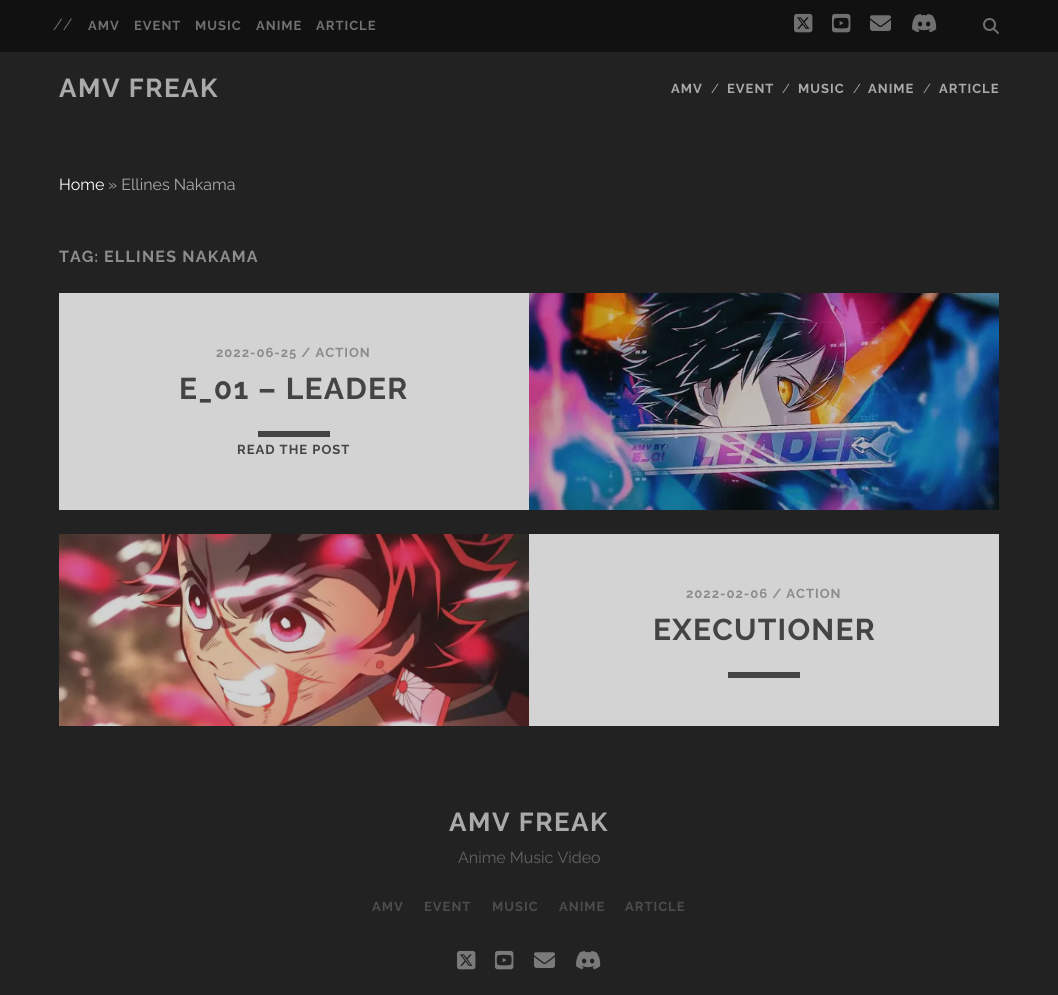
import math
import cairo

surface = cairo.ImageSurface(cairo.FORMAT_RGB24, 1058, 995)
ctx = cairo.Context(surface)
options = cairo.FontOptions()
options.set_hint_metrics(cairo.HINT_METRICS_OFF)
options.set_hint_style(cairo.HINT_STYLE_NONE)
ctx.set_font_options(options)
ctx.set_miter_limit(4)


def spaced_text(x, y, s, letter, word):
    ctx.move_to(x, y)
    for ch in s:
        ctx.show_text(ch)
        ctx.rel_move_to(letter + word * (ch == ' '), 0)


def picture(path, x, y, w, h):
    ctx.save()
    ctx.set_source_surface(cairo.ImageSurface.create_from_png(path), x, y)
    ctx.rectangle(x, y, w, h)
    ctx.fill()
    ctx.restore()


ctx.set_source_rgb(0.133, 0.133, 0.133)
ctx.paint()
ctx.set_source_rgb(0.067, 0.067, 0.067)
ctx.rectangle(0, 0, 1058, 52)
ctx.fill()
ctx.select_font_face("Raleway")
ctx.set_font_size(16)
ctx.set_source_rgb(0.439, 0.439, 0.439)
ctx.move_to(53, 30)
ctx.show_text("//")
ctx.select_font_face("Raleway", cairo.FONT_SLANT_NORMAL, cairo.FONT_WEIGHT_BOLD)
ctx.set_font_size(13)
spaced_text(88, 30, "AMV", 1, 0)
spaced_text(134, 30, "EVENT", 1, 0)
spaced_text(195, 30, "MUSIC", 1, 0)
spaced_text(256, 30, "ANIME", 1, 0)
spaced_text(316, 30, "ARTICLE", 1, 0)
picture("img1.png", 794, 13, 19, 20)
picture("img2.png", 832, 13, 19, 20)
picture("img3.png", 870, 15, 21, 16)
picture("img4.png", 912, 14, 25, 19)
picture("img5.png", 983, 18, 16, 16)
ctx.set_font_size(26)
ctx.set_source_rgb(0.667, 0.667, 0.667)
spaced_text(59, 97, "AMV FREAK", 1.5, 0)
ctx.set_font_size(13)
spaced_text(671, 93, "AMV", 1, 0)
ctx.select_font_face("Raleway")
ctx.move_to(711, 93)
ctx.show_text("/")
ctx.select_font_face("Raleway", cairo.FONT_SLANT_NORMAL, cairo.FONT_WEIGHT_BOLD)
spaced_text(727, 93, "EVENT", 1, 0)
ctx.select_font_face("Raleway")
ctx.move_to(782, 93)
ctx.show_text("/")
ctx.select_font_face("Raleway", cairo.FONT_SLANT_NORMAL, cairo.FONT_WEIGHT_BOLD)
spaced_text(798, 93, "MUSIC", 1, 0)
ctx.select_font_face("Raleway")
ctx.move_to(853, 93)
ctx.show_text("/")
ctx.select_font_face("Raleway", cairo.FONT_SLANT_NORMAL, cairo.FONT_WEIGHT_BOLD)
spaced_text(868, 93, "ANIME", 1, 0)
ctx.select_font_face("Raleway")
ctx.move_to(923, 93)
ctx.show_text("/")
ctx.select_font_face("Raleway", cairo.FONT_SLANT_NORMAL, cairo.FONT_WEIGHT_BOLD)
spaced_text(939, 93, "ARTICLE", 1, 0)
ctx.select_font_face("Raleway")
ctx.set_font_size(16)
ctx.set_source_rgb(1, 1, 1)
ctx.move_to(59, 190)
ctx.show_text("Home")
ctx.set_source_rgb(0.667, 0.667, 0.667)
ctx.move_to(108, 190)
ctx.show_text("» Ellines Nakama")
ctx.select_font_face("Raleway", cairo.FONT_SLANT_NORMAL, cairo.FONT_WEIGHT_BOLD)
ctx.set_source_rgb(0.549, 0.549, 0.549)
spaced_text(59, 262, "TAG:", 1, 0)
spaced_text(104, 262, "ELLINES NAKAMA", 1.25, 0)
ctx.set_source_rgb(0.827, 0.827, 0.827)
ctx.rectangle(59, 293, 470, 217)
ctx.fill()
ctx.set_font_size(13)
ctx.set_source_rgb(0.549, 0.549, 0.549)
spaced_text(216, 357, "2022-06-25 / ACTION", 1, 0)
ctx.set_font_size(30)
ctx.set_source_rgb(0.267, 0.267, 0.267)
spaced_text(179, 399, "E_01 – LEADER", 1.25, 0)
ctx.rectangle(258, 431, 72, 6)
ctx.fill()
ctx.set_font_size(13)
spaced_text(237, 454, "READ THE POST", 1, 0)
picture("img6.png", 529, 293, 470, 217)
picture("img7.png", 59, 534, 470, 192)
ctx.set_source_rgb(0.827, 0.827, 0.827)
ctx.rectangle(529, 534, 470, 192)
ctx.fill()
ctx.set_source_rgb(0.549, 0.549, 0.549)
spaced_text(686, 598, "2022-02-06 / ACTION", 1, 0)
ctx.set_font_size(30)
ctx.set_source_rgb(0.267, 0.267, 0.267)
spaced_text(653, 640, "EXECUTIONER", 1.25, 0)
ctx.rectangle(728, 672, 72, 6)
ctx.fill()
ctx.set_font_size(26)
ctx.set_source_rgb(0.667, 0.667, 0.667)
spaced_text(449, 831, "AMV FREAK", 1.5, 0)
ctx.select_font_face("Raleway")
ctx.set_font_size(16)
ctx.set_source_rgb(0.384, 0.384, 0.384)
ctx.move_to(458, 863)
ctx.show_text("Anime Music Video")
ctx.select_font_face("Raleway", cairo.FONT_SLANT_NORMAL, cairo.FONT_WEIGHT_BOLD)
ctx.set_font_size(13)
ctx.set_source_rgb(0.298, 0.298, 0.298)
spaced_text(372, 911, "AMV", 1, 0)
spaced_text(424, 911, "EVENT", 1, 0)
spaced_text(492, 911, "MUSIC", 1, 0)
spaced_text(559, 911, "ANIME", 1, 0)
spaced_text(625, 911, "ARTICLE", 1, 0)
picture("img8.png", 457, 950, 19, 20)
picture("img9.png", 495, 950, 19, 20)
picture("img10.png", 534, 952, 21, 16)
picture("img11.png", 576, 951, 25, 19)
surface.write_to_png("page.png")
